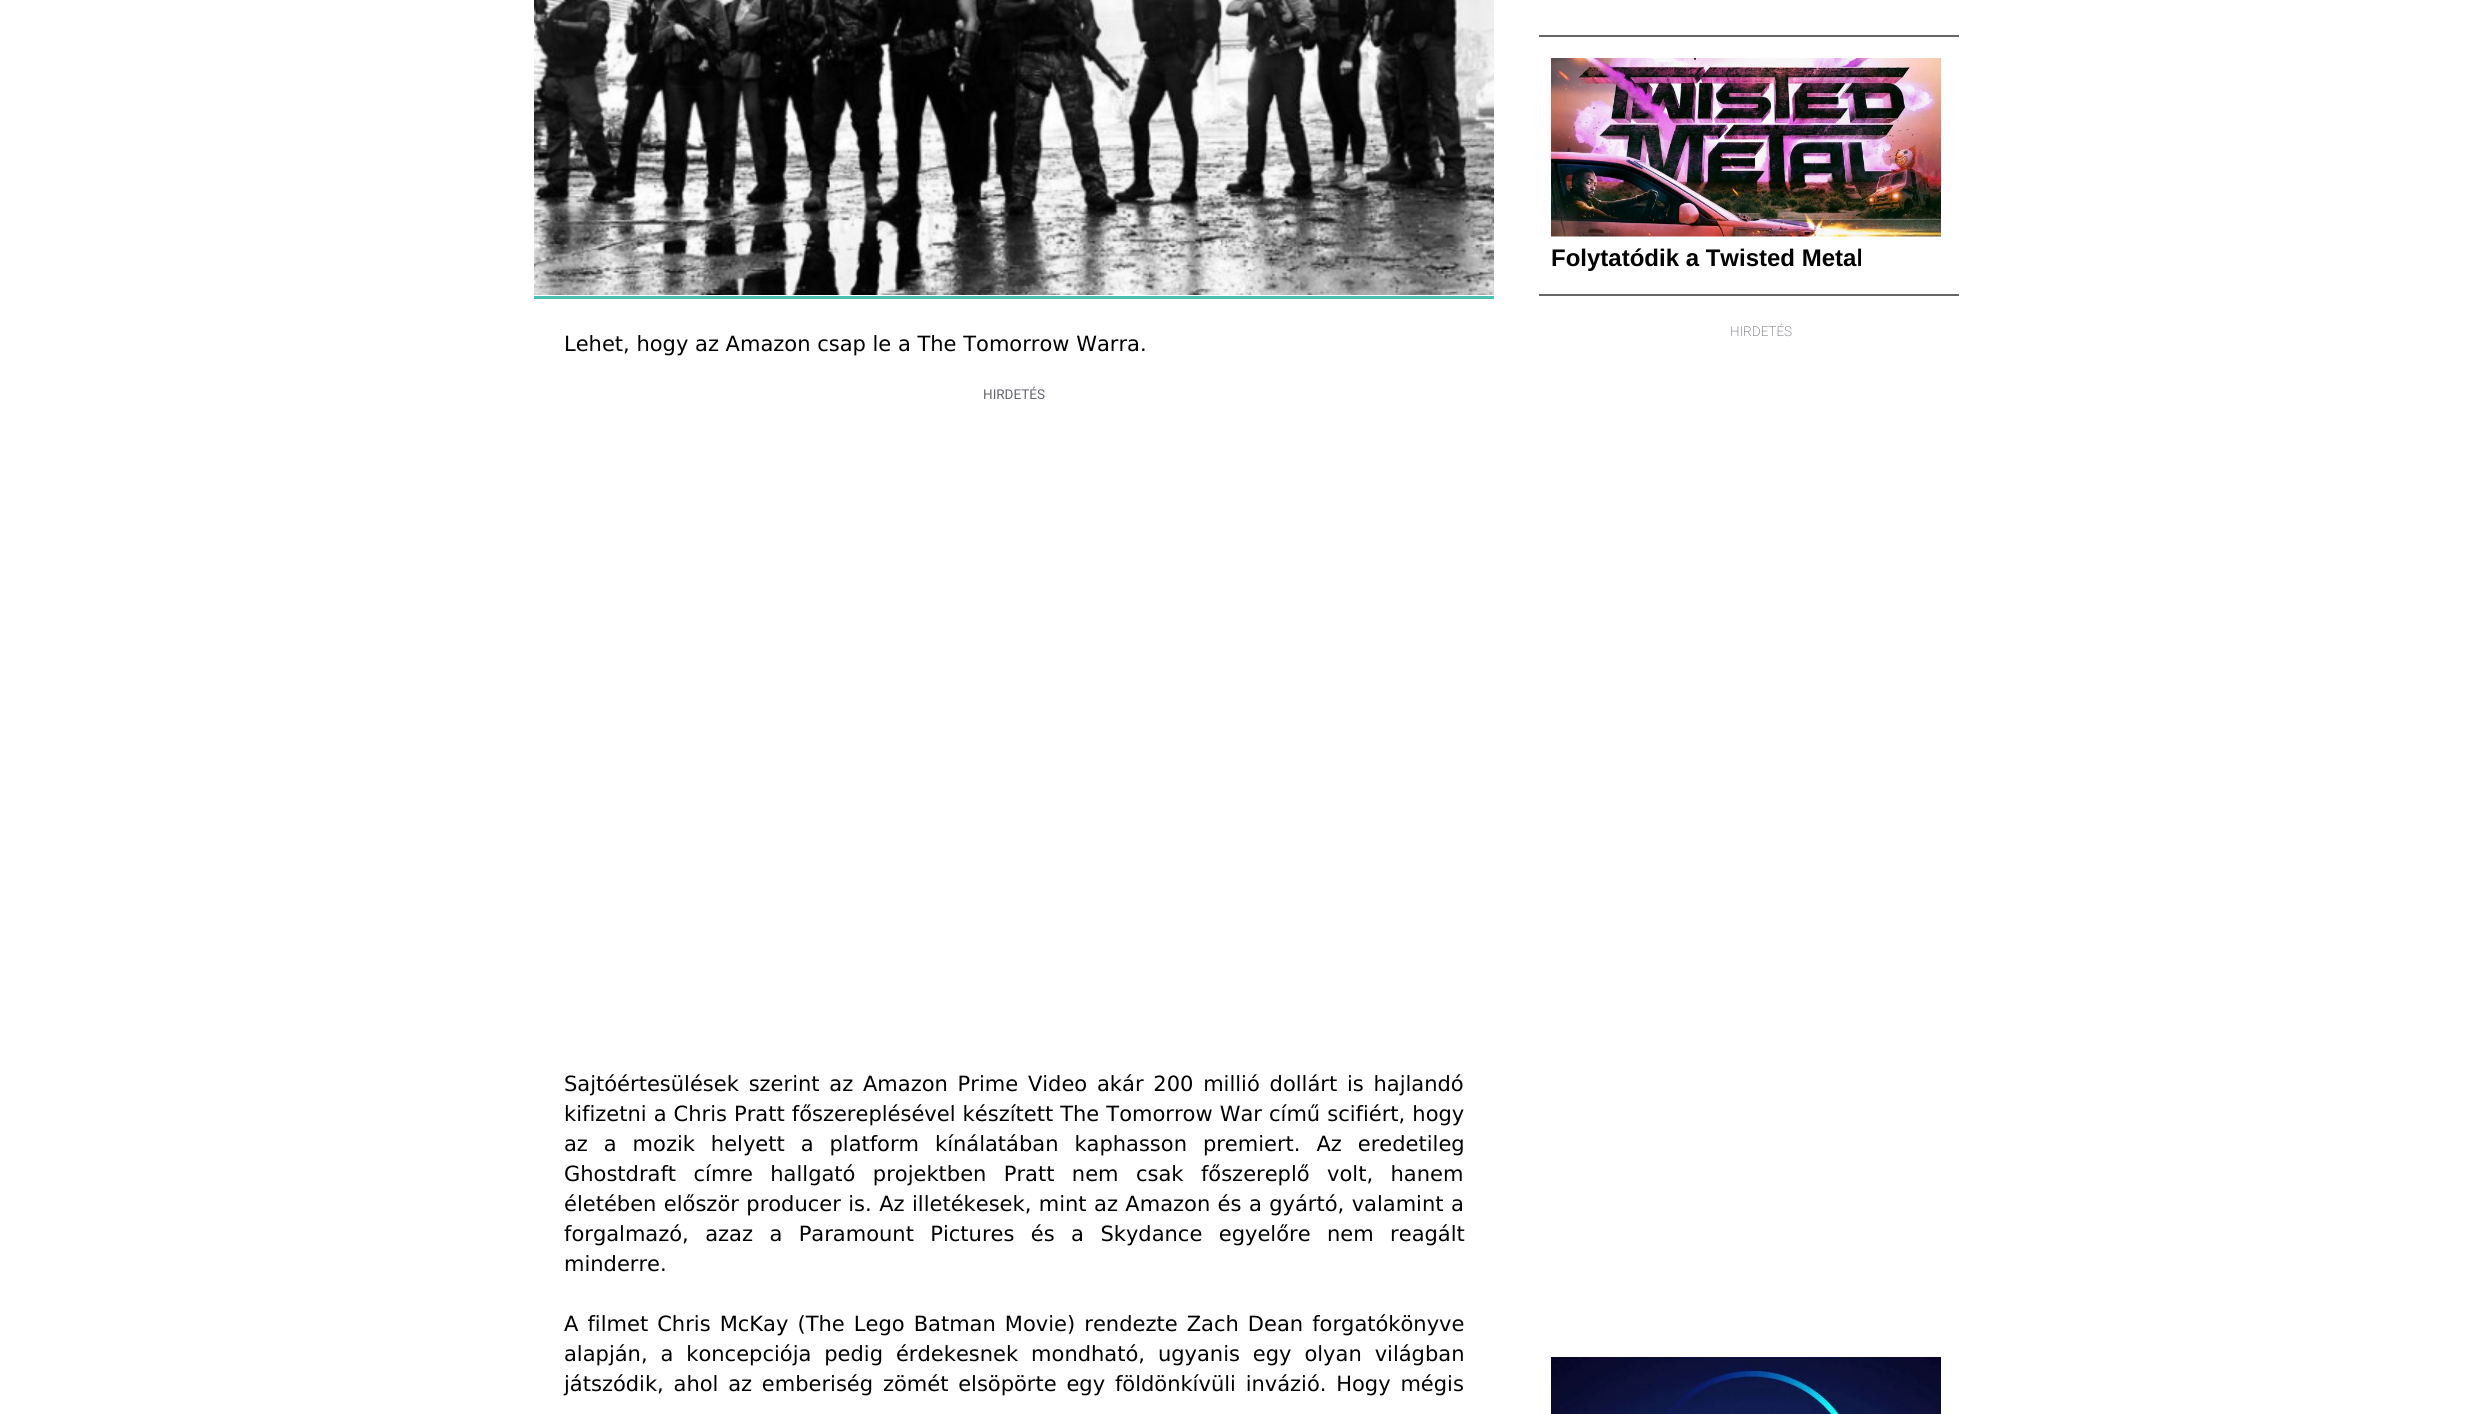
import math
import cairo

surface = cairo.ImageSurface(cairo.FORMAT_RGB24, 2491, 1414)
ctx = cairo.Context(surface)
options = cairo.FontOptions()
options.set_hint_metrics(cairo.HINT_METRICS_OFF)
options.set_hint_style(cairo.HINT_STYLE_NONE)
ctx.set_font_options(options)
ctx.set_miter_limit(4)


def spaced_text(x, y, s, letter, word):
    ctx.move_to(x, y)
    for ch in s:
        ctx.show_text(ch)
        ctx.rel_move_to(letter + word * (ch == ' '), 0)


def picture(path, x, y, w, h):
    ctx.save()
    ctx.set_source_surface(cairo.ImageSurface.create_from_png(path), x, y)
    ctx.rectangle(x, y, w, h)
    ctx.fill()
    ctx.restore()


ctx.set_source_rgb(1, 1, 1)
ctx.paint()
ctx.set_source_rgb(0.4, 0.4, 0.4)
ctx.rectangle(1539, 35, 420, 2)
ctx.fill()
ctx.rectangle(1539, 294, 420, 2)
ctx.fill()
picture("img1.png", 1551, 58, 390, 179)
ctx.select_font_face("Liberation Sans", cairo.FONT_SLANT_NORMAL, cairo.FONT_WEIGHT_BOLD)
ctx.set_font_size(24)
ctx.set_source_rgb(0.004, 0.004, 0.004)
ctx.move_to(1551, 266)
ctx.show_text("Folytatódik a Twisted Metal")
ctx.select_font_face("Roboto ExtraLight")
ctx.set_font_size(13.5)
ctx.set_source_rgb(0.408, 0.396, 0.439)
ctx.move_to(1730, 336)
ctx.show_text("HIRDETÉS")
picture("img2.png", 1551, 1357, 390, 57)
picture("img3.png", 534, 0, 960, 295)
ctx.set_source_rgb(0.29, 0.753, 0.694)
ctx.rectangle(534, 296, 960, 3)
ctx.fill()
ctx.select_font_face("DejaVu Sans")
ctx.set_font_size(21)
ctx.set_source_rgb(0.004, 0.004, 0.004)
ctx.move_to(564, 351)
ctx.show_text("Lehet, hogy az Amazon csap le a The Tomorrow Warra.")
ctx.select_font_face("Roboto")
ctx.set_font_size(13.5)
ctx.set_source_rgb(0.408, 0.396, 0.439)
ctx.move_to(983, 399)
ctx.show_text("HIRDETÉS")
ctx.select_font_face("DejaVu Sans")
ctx.set_font_size(21)
ctx.set_source_rgb(0.004, 0.004, 0.004)
spaced_text(564, 1091, "Sajtóértesülések szerint az Amazon Prime Video akár 200 millió dollárt is hajlandó", 0, 3.1)
spaced_text(564, 1121, "kifizetni a Chris Pratt főszereplésével készített The Tomorrow War című scifiért, hogy", 0, 0.4)
spaced_text(564, 1151, "az a mozik helyett a platform kínálatában kaphasson premiert. Az eredetileg", 0, 9.25)
spaced_text(564, 1181, "Ghostdraft címre hallgató projektben Pratt nem csak főszereplő volt, hanem", 0, 10.75)
spaced_text(564, 1211, "életében először producer is. Az illetékesek, mint az Amazon és a gyártó, valamint a", 0, 0.75)
spaced_text(564, 1241, "forgalmazó, azaz a Paramount Pictures és a Skydance egyelőre nem reagált", 0, 9.75)
ctx.move_to(564, 1271)
ctx.show_text("minderre.")
spaced_text(564, 1331, "A filmet Chris McKay (The Lego Batman Movie) rendezte Zach Dean forgatókönyve", 0, 2.4)
spaced_text(564, 1361, "alapján, a koncepciója pedig érdekesnek mondható, ugyanis egy olyan világban", 0, 6.25)
spaced_text(564, 1391, "játszódik, ahol az emberiség zömét elsöpörte egy földönkívüli invázió. Hogy mégis", 0, 3.1)
surface.write_to_png("page.png")
